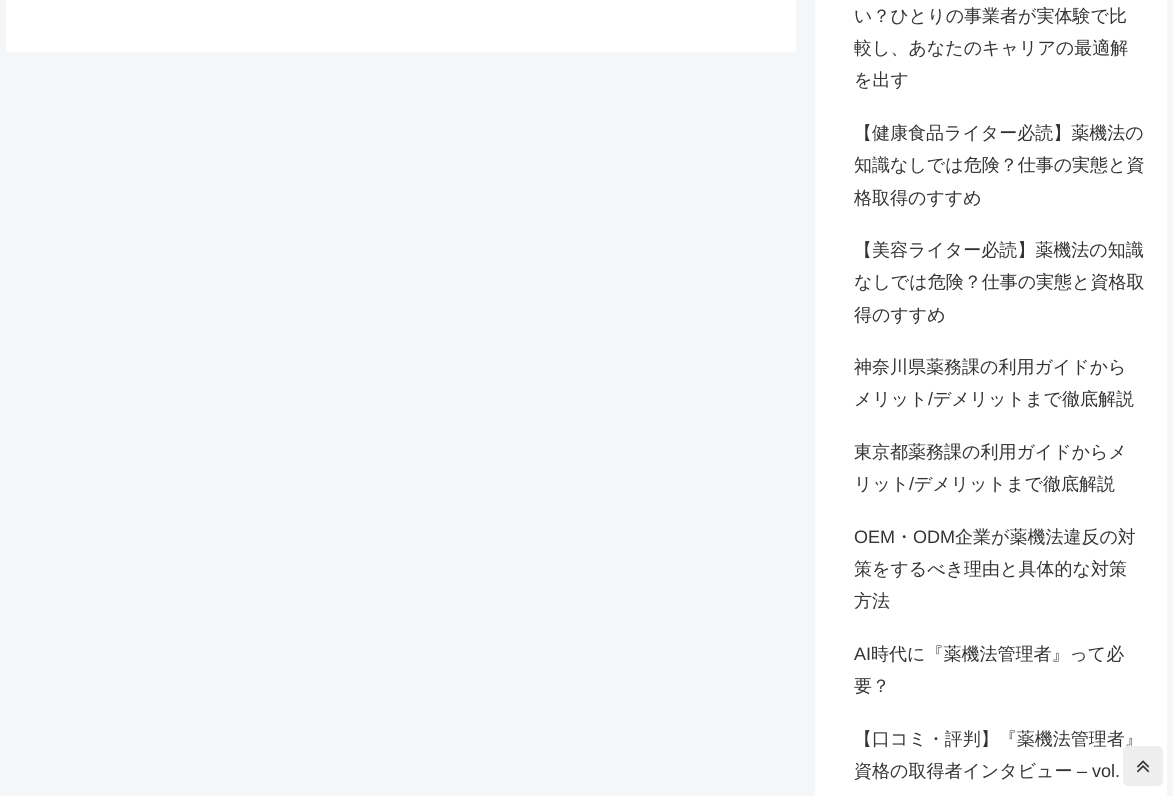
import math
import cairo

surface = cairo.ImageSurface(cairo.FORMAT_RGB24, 1173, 796)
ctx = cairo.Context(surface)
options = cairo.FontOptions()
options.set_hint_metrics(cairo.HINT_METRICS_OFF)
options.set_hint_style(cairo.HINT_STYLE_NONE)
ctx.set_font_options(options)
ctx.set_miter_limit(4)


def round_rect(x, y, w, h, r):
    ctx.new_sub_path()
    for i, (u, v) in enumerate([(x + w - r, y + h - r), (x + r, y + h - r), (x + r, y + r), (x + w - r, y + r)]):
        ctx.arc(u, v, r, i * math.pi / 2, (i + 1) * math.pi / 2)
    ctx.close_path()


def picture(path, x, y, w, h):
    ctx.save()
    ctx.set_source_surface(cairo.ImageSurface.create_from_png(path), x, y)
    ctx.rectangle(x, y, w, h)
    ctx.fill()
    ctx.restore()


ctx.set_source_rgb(0.957, 0.961, 0.969)
ctx.paint()
ctx.set_source_rgb(1, 1, 1)
round_rect(6, -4, 790, 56, 4)
ctx.fill()
ctx.rectangle(815, 0, 352, 796)
ctx.fill()
ctx.select_font_face("WenQuanYi Zen Hei Medium")
ctx.set_font_size(18)
ctx.set_source_rgb(0.2, 0.2, 0.2)
ctx.move_to(854, 22)
ctx.show_text("い？ひとりの事業者が実体験で比")
ctx.move_to(854, 54)
ctx.show_text("較し、あなたのキャリアの最適解")
ctx.move_to(854, 86)
ctx.show_text("を出す")
ctx.move_to(854, 139)
ctx.show_text("【健康食品ライター必読】薬機法の")
ctx.move_to(854, 171)
ctx.show_text("知識なしでは危険？仕事の実態と資")
ctx.move_to(854, 204)
ctx.show_text("格取得のすすめ")
ctx.move_to(854, 256)
ctx.show_text("【美容ライター必読】薬機法の知識")
ctx.move_to(854, 288)
ctx.show_text("なしでは危険？仕事の実態と資格取")
ctx.move_to(854, 321)
ctx.show_text("得のすすめ")
ctx.move_to(854, 373)
ctx.show_text("神奈川県薬務課の利用ガイドから")
ctx.move_to(854, 405)
ctx.show_text("メリット")
ctx.select_font_face("Liberation Sans")
ctx.move_to(928, 405)
ctx.show_text("/")
ctx.select_font_face("WenQuanYi Zen Hei Medium")
ctx.move_to(933, 405)
ctx.show_text("デメリットまで徹底解説")
ctx.move_to(854, 458)
ctx.show_text("東京都薬務課の利用ガイドからメ")
ctx.move_to(854, 490)
ctx.show_text("リット")
ctx.select_font_face("Liberation Sans")
ctx.move_to(909, 490)
ctx.show_text("/")
ctx.select_font_face("WenQuanYi Zen Hei Medium")
ctx.move_to(914, 490)
ctx.show_text("デメリットまで徹底解説")
ctx.select_font_face("Liberation Sans")
ctx.move_to(854, 543)
ctx.show_text("OEM")
ctx.select_font_face("WenQuanYi Zen Hei Medium")
ctx.move_to(895, 543)
ctx.show_text("・")
ctx.select_font_face("Liberation Sans")
ctx.move_to(913, 543)
ctx.show_text("ODM")
ctx.select_font_face("WenQuanYi Zen Hei Medium")
ctx.move_to(955, 543)
ctx.show_text("企業が薬機法違反の対")
ctx.move_to(854, 575)
ctx.show_text("策をするべき理由と具体的な対策")
ctx.move_to(854, 607)
ctx.show_text("方法")
ctx.select_font_face("Liberation Sans")
ctx.move_to(854, 660)
ctx.show_text("AI")
ctx.select_font_face("WenQuanYi Zen Hei Medium")
ctx.move_to(871, 660)
ctx.show_text("時代に『薬機法管理者』って必")
ctx.move_to(854, 692)
ctx.show_text("要？")
ctx.move_to(854, 745)
ctx.show_text("【口コミ・評判】『薬機法管理者』")
ctx.move_to(854, 777)
ctx.show_text("資格の取得者インタビュー")
ctx.select_font_face("Liberation Sans")
ctx.move_to(1077, 777)
ctx.show_text("– vol.")
ctx.set_source_rgb(0.933, 0.933, 0.933)
round_rect(1123, 746, 40, 40, 5)
ctx.fill()
picture("img1.png", 1137, 760, 13, 13)
surface.write_to_png("page.png")
